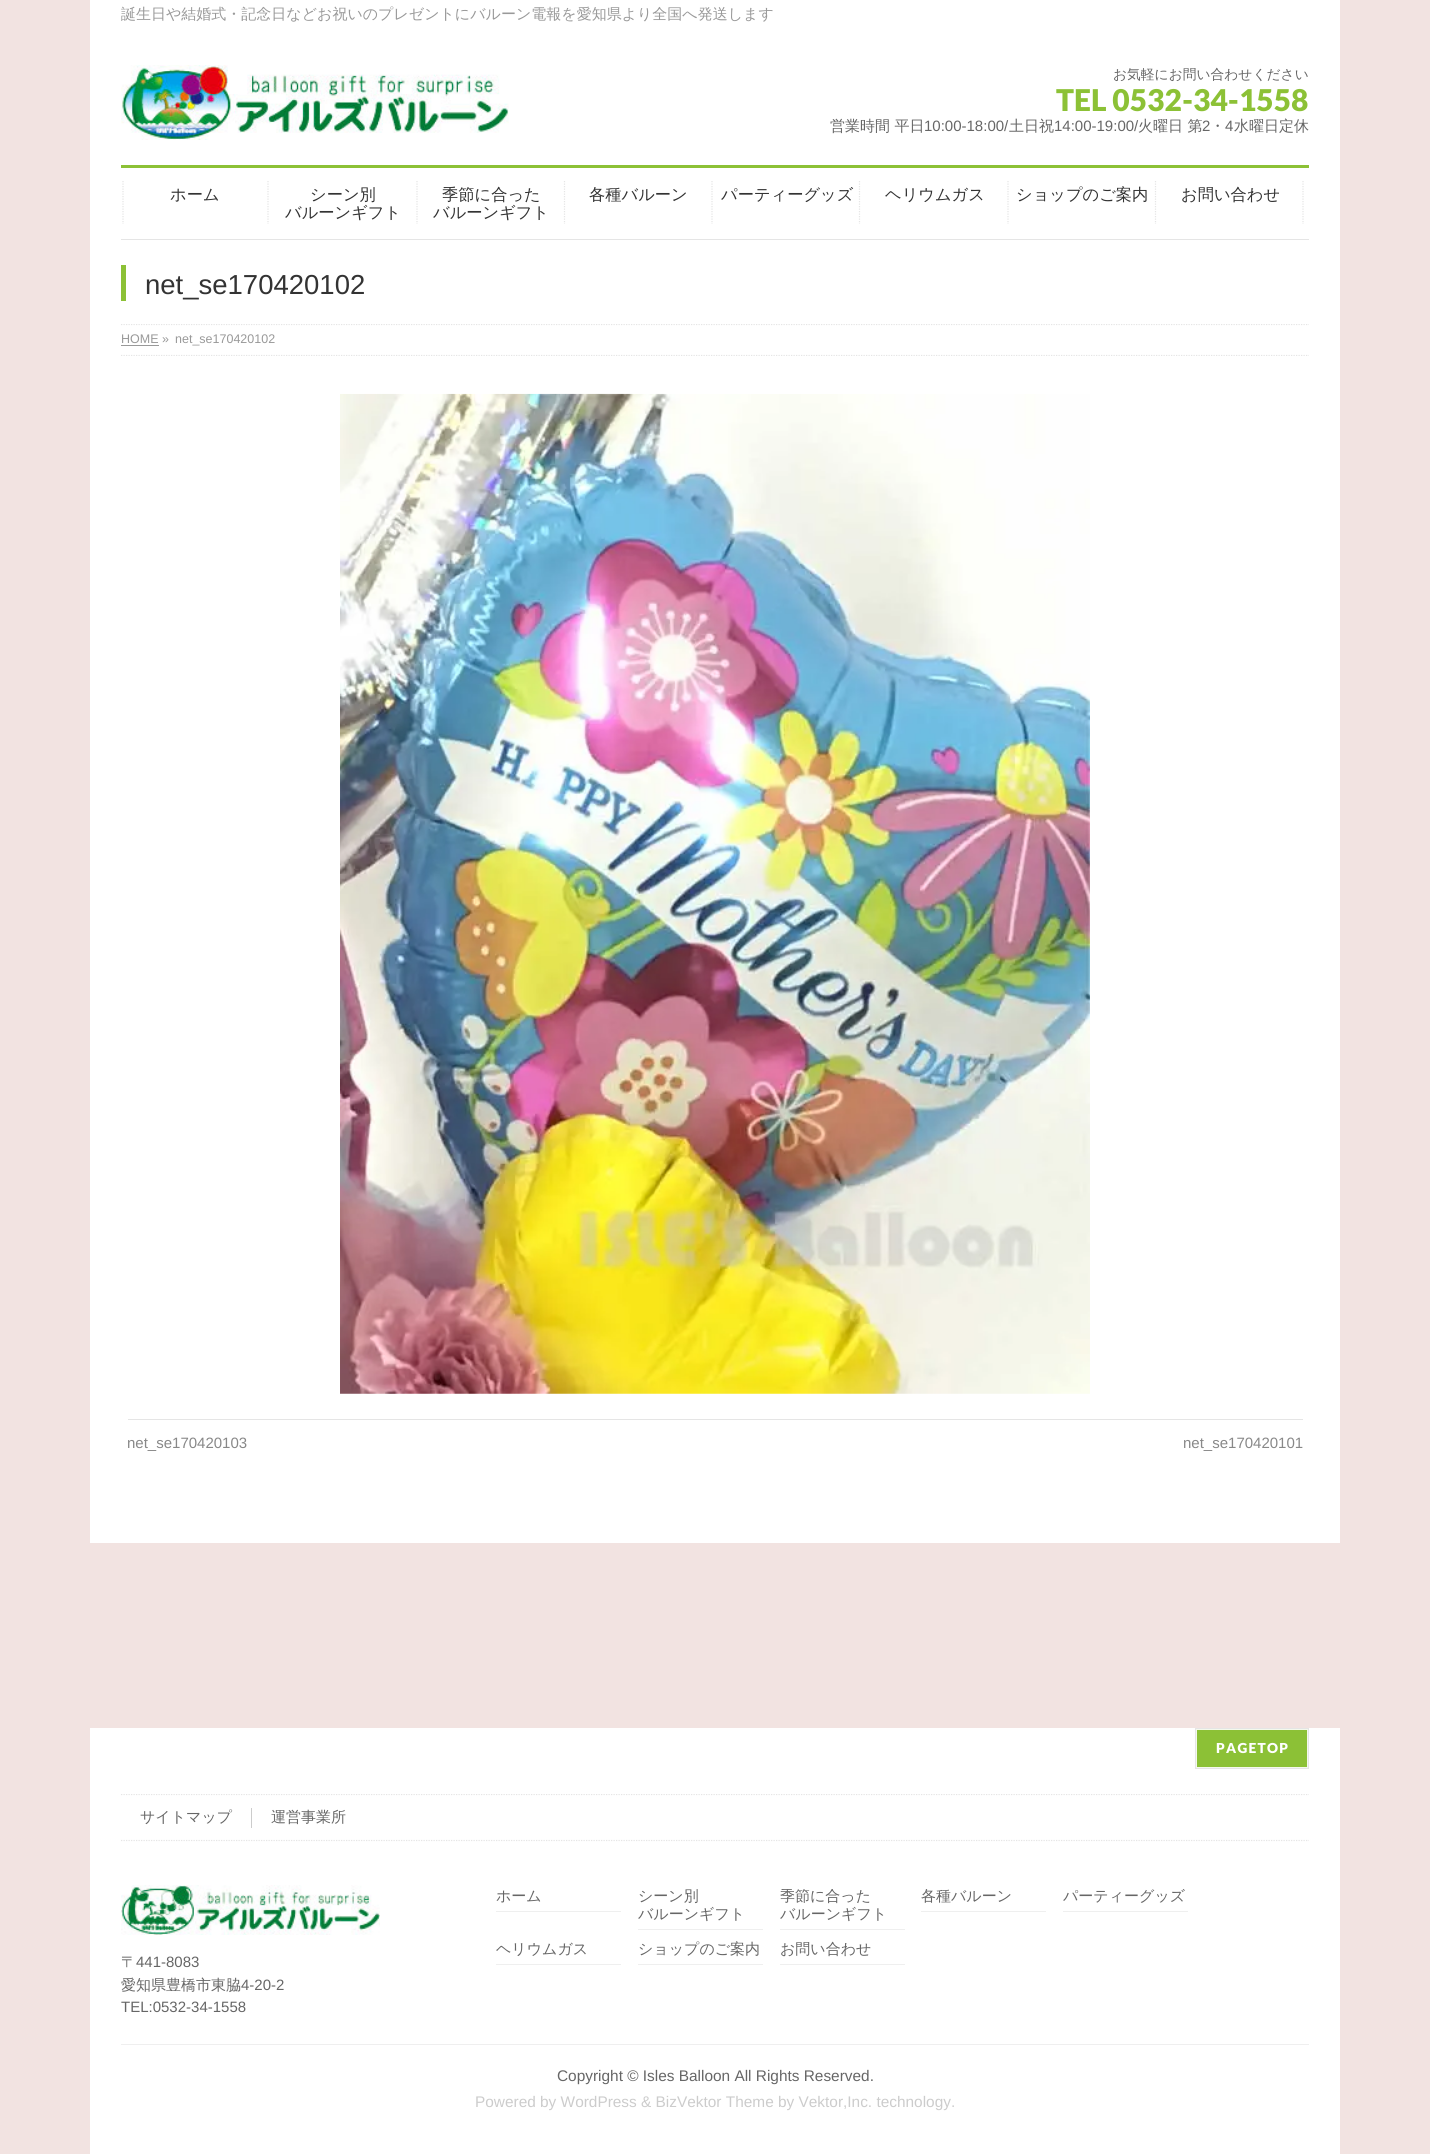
import math
import cairo

surface = cairo.ImageSurface(cairo.FORMAT_RGB24, 1430, 2154)
ctx = cairo.Context(surface)
options = cairo.FontOptions()
options.set_hint_metrics(cairo.HINT_METRICS_OFF)
options.set_hint_style(cairo.HINT_STYLE_NONE)
ctx.set_font_options(options)
ctx.set_miter_limit(4)


def spaced_text(x, y, s, letter, word):
    ctx.move_to(x, y)
    for ch in s:
        ctx.show_text(ch)
        ctx.rel_move_to(letter + word * (ch == ' '), 0)


def picture(path, x, y, w, h):
    ctx.save()
    ctx.set_source_surface(cairo.ImageSurface.create_from_png(path), x, y)
    ctx.rectangle(x, y, w, h)
    ctx.fill()
    ctx.restore()


ctx.set_source_rgb(0.949, 0.89, 0.882)
ctx.paint()
ctx.set_source_rgb(1, 1, 1)
ctx.rectangle(90, 0, 1250, 240)
ctx.fill()
ctx.select_font_face("WenQuanYi Zen Hei Medium")
ctx.set_font_size(15)
ctx.set_source_rgb(0.6, 0.6, 0.6)
ctx.move_to(121, 19)
ctx.show_text("誕生日や結婚式・記念日などお祝いのプレゼントにバルーン電報を愛知県より全国へ発送します")
picture("img1.png", 121, 65, 388, 75)
ctx.set_font_size(13.75)
ctx.set_source_rgb(0.4, 0.4, 0.4)
ctx.move_to(1113, 79)
ctx.show_text("お気軽にお問い合わせください")
ctx.select_font_face("Lato Black")
ctx.set_font_size(30)
ctx.set_source_rgb(0.549, 0.757, 0.212)
ctx.move_to(1056, 111)
ctx.show_text("TEL 0532-34-1558")
ctx.select_font_face("WenQuanYi Zen Hei Medium")
ctx.set_font_size(15)
ctx.set_source_rgb(0.4, 0.4, 0.4)
ctx.move_to(830, 131)
ctx.show_text("営業時間 平日")
ctx.select_font_face("Liberation Sans")
ctx.move_to(924, 131)
ctx.show_text("10:00-18:00/")
ctx.select_font_face("WenQuanYi Zen Hei Medium")
ctx.move_to(1009, 131)
ctx.show_text("土日祝")
ctx.select_font_face("Liberation Sans")
ctx.move_to(1054, 131)
ctx.show_text("14:00-19:00/")
ctx.select_font_face("WenQuanYi Zen Hei Medium")
ctx.move_to(1138, 131)
ctx.show_text("火曜日 第")
ctx.select_font_face("Liberation Sans")
ctx.move_to(1202, 131)
ctx.show_text("2")
ctx.select_font_face("WenQuanYi Zen Hei Medium")
ctx.move_to(1210, 131)
ctx.show_text("・")
ctx.select_font_face("Liberation Sans")
ctx.move_to(1225, 131)
ctx.show_text("4")
ctx.select_font_face("WenQuanYi Zen Hei Medium")
ctx.move_to(1234, 131)
ctx.show_text("水曜日定休")
ctx.set_source_rgb(0.549, 0.757, 0.212)
ctx.rectangle(121, 165, 1188, 3)
ctx.fill()
ctx.set_source_rgb(0.898, 0.898, 0.898)
ctx.rectangle(121, 239, 1188, 1)
ctx.fill()
ctx.new_path()
ctx.move_to(123, 181)
ctx.line_to(123, 224)
ctx.set_line_width(1.2)
ctx.set_dash([1.25, 1.25])
ctx.stroke()
ctx.set_font_size(16.25)
ctx.set_source_rgb(0.2, 0.2, 0.2)
ctx.move_to(170, 200)
ctx.show_text("ホーム")
ctx.new_path()
ctx.move_to(268, 181)
ctx.line_to(268, 224)
ctx.set_source_rgb(0.898, 0.898, 0.898)
ctx.stroke()
ctx.set_source_rgb(0.2, 0.2, 0.2)
ctx.move_to(310, 200)
ctx.show_text("シーン別")
ctx.move_to(285, 218)
ctx.show_text("バルーンギフト")
ctx.new_path()
ctx.move_to(417, 181)
ctx.line_to(417, 224)
ctx.set_source_rgb(0.898, 0.898, 0.898)
ctx.stroke()
ctx.set_source_rgb(0.2, 0.2, 0.2)
ctx.move_to(442, 200)
ctx.show_text("季節に合った")
ctx.move_to(433, 218)
ctx.show_text("バルーンギフト")
ctx.new_path()
ctx.move_to(564.5, 181)
ctx.line_to(564.5, 224)
ctx.set_source_rgb(0.898, 0.898, 0.898)
ctx.stroke()
ctx.set_source_rgb(0.2, 0.2, 0.2)
ctx.move_to(589, 200)
ctx.show_text("各種バルーン")
ctx.new_path()
ctx.move_to(712, 181)
ctx.line_to(712, 224)
ctx.set_source_rgb(0.898, 0.898, 0.898)
ctx.stroke()
ctx.set_source_rgb(0.2, 0.2, 0.2)
ctx.move_to(721, 200)
ctx.show_text("パーティーグッズ")
ctx.new_path()
ctx.move_to(859.5, 181)
ctx.line_to(859.5, 224)
ctx.set_source_rgb(0.898, 0.898, 0.898)
ctx.stroke()
ctx.set_source_rgb(0.2, 0.2, 0.2)
ctx.move_to(885, 200)
ctx.show_text("ヘリウムガス")
ctx.new_path()
ctx.move_to(1008, 181)
ctx.line_to(1008, 224)
ctx.set_source_rgb(0.898, 0.898, 0.898)
ctx.stroke()
ctx.set_source_rgb(0.2, 0.2, 0.2)
ctx.move_to(1016, 200)
ctx.show_text("ショップのご案内")
ctx.new_path()
ctx.move_to(1155.5, 181)
ctx.line_to(1155.5, 224)
ctx.set_source_rgb(0.898, 0.898, 0.898)
ctx.stroke()
ctx.set_source_rgb(0.2, 0.2, 0.2)
ctx.move_to(1181, 200)
ctx.show_text("お問い合わせ")
ctx.new_path()
ctx.move_to(1303, 181)
ctx.line_to(1303, 224)
ctx.set_source_rgb(0.898, 0.898, 0.898)
ctx.stroke()
ctx.set_source_rgb(1, 1, 1)
ctx.rectangle(90, 240, 1250, 84)
ctx.fill()
ctx.set_source_rgb(0.549, 0.757, 0.212)
ctx.rectangle(121, 265, 5, 36)
ctx.fill()
ctx.select_font_face("Liberation Sans")
ctx.set_font_size(27.5)
ctx.set_source_rgb(0.2, 0.2, 0.2)
ctx.move_to(145, 294)
ctx.show_text("net_se170420102")
ctx.set_source_rgb(1, 1, 1)
ctx.rectangle(90, 324, 1250, 1219)
ctx.fill()
ctx.save()
ctx.rectangle(90, 324, 1250, 32)
ctx.clip()
ctx.new_path()
ctx.move_to(121, 324.5)
ctx.line_to(1309, 324.5)
ctx.set_source_rgb(0.898, 0.898, 0.898)
ctx.stroke()
ctx.new_path()
ctx.move_to(121, 355.5)
ctx.line_to(1309, 355.5)
ctx.stroke()
ctx.restore()
ctx.set_font_size(12.5)
ctx.set_source_rgb(0.6, 0.6, 0.6)
ctx.move_to(121, 343)
ctx.show_text("HOME »")
ctx.rectangle(121, 345, 38, 1)
ctx.fill()
ctx.move_to(175, 343)
ctx.show_text("net_se170420102")
picture("img2.png", 340, 393, 750, 1001)
ctx.set_source_rgb(0.898, 0.898, 0.898)
ctx.rectangle(128, 1419, 1175, 1)
ctx.fill()
ctx.set_font_size(15)
ctx.set_source_rgb(0.533, 0.533, 0.533)
ctx.move_to(127, 1448)
ctx.show_text("net_se170420103")
ctx.move_to(1183, 1448)
ctx.show_text("net_se170420101")
ctx.set_source_rgb(1, 1, 1)
ctx.rectangle(90, 1728, 1250, 126)
ctx.fill()
ctx.set_source_rgb(0.549, 0.757, 0.212)
ctx.rectangle(1196.5, 1729.5, 111, 38)
ctx.fill_preserve()
ctx.set_source_rgb(0.957, 0.976, 0.922)
ctx.set_line_width(1)
ctx.set_dash([])
ctx.stroke()
ctx.rectangle(1195.5, 1728.5, 113, 40)
ctx.set_source_rgb(0.898, 0.898, 0.898)
ctx.stroke()
ctx.select_font_face("Lato Black")
ctx.set_font_size(13.75)
ctx.set_source_rgb(1, 1, 1)
spaced_text(1216, 1753, "PAGETOP", 1.25, 0)
ctx.save()
ctx.rectangle(0, 1794, 1430, 60)
ctx.clip()
ctx.new_path()
ctx.move_to(121, 1794.5)
ctx.line_to(1309, 1794.5)
ctx.set_source_rgb(0.898, 0.898, 0.898)
ctx.set_line_width(1.2)
ctx.set_dash([1.25, 1.25])
ctx.stroke()
ctx.restore()
ctx.new_path()
ctx.move_to(121, 1840.5)
ctx.line_to(1309, 1840.5)
ctx.set_source_rgb(0.898, 0.898, 0.898)
ctx.set_line_width(1.2)
ctx.set_dash([1.25, 1.25])
ctx.stroke()
ctx.set_source_rgb(0.8, 0.8, 0.8)
ctx.rectangle(251, 1808, 1, 20)
ctx.fill()
ctx.select_font_face("WenQuanYi Zen Hei Medium")
ctx.set_font_size(15)
ctx.set_source_rgb(0.4, 0.4, 0.4)
ctx.move_to(140, 1822)
ctx.show_text("サイトマップ")
ctx.move_to(271, 1822)
ctx.show_text("運営事業所")
ctx.set_source_rgb(1, 1, 1)
ctx.rectangle(90, 1854, 1250, 300)
ctx.fill()
ctx.set_source_rgb(0.937, 0.937, 0.937)
ctx.rectangle(496, 1911, 125, 1)
ctx.fill()
ctx.set_source_rgb(0.4, 0.4, 0.4)
ctx.move_to(496, 1901)
ctx.show_text("ホーム")
ctx.set_source_rgb(0.937, 0.937, 0.937)
ctx.rectangle(638, 1929, 125, 1)
ctx.fill()
ctx.set_source_rgb(0.4, 0.4, 0.4)
ctx.move_to(638, 1901)
ctx.show_text("シーン別")
ctx.move_to(638, 1919)
ctx.show_text("バルーンギフト")
ctx.set_source_rgb(0.937, 0.937, 0.937)
ctx.rectangle(780, 1929, 125, 1)
ctx.fill()
ctx.save()
ctx.rectangle(780, 1889, 125, 40)
ctx.clip()
ctx.set_source_rgb(0.4, 0.4, 0.4)
ctx.move_to(780, 1901)
ctx.show_text("季節に合った")
ctx.restore()
ctx.set_source_rgb(0.4, 0.4, 0.4)
ctx.move_to(780, 1919)
ctx.show_text("バルーンギフト")
ctx.set_source_rgb(0.937, 0.937, 0.937)
ctx.rectangle(921, 1911, 125, 1)
ctx.fill()
ctx.set_source_rgb(0.4, 0.4, 0.4)
ctx.move_to(921, 1901)
ctx.show_text("各種バルーン")
ctx.set_source_rgb(0.937, 0.937, 0.937)
ctx.rectangle(1063, 1911, 125, 1)
ctx.fill()
ctx.set_source_rgb(0.4, 0.4, 0.4)
ctx.move_to(1063, 1901)
ctx.show_text("パーティーグッズ")
ctx.set_source_rgb(0.937, 0.937, 0.937)
ctx.rectangle(496, 1964, 125, 1)
ctx.fill()
ctx.set_source_rgb(0.4, 0.4, 0.4)
ctx.move_to(496, 1954)
ctx.show_text("ヘリウムガス")
ctx.set_source_rgb(0.937, 0.937, 0.937)
ctx.rectangle(638, 1964, 125, 1)
ctx.fill()
ctx.set_source_rgb(0.4, 0.4, 0.4)
ctx.move_to(638, 1954)
ctx.show_text("ショップのご案内")
ctx.set_source_rgb(0.937, 0.937, 0.937)
ctx.rectangle(780, 1964, 125, 1)
ctx.fill()
ctx.set_source_rgb(0.4, 0.4, 0.4)
ctx.move_to(780, 1954)
ctx.show_text("お問い合わせ")
picture("img3.png", 121, 1885, 259, 50)
ctx.move_to(121, 1967)
ctx.show_text("〒")
ctx.select_font_face("Liberation Sans")
ctx.move_to(136, 1967)
ctx.show_text("441-8083")
ctx.select_font_face("WenQuanYi Zen Hei Medium")
ctx.move_to(121, 1990)
ctx.show_text("愛知県豊橋市東脇")
ctx.select_font_face("Liberation Sans")
ctx.move_to(241, 1990)
ctx.show_text("4-20-2")
ctx.move_to(121, 2012)
ctx.show_text("TEL:0532-34-1558")
ctx.set_source_rgb(0.937, 0.937, 0.937)
ctx.rectangle(121, 2044, 1188, 1)
ctx.fill()
ctx.set_font_size(15.4)
ctx.set_source_rgb(0.4, 0.4, 0.4)
ctx.move_to(557, 2081)
ctx.show_text("Copyright © Isles Balloon All Rights Reserved.")
ctx.set_source_rgb(0.8, 0.8, 0.8)
ctx.move_to(475, 2107)
ctx.show_text("Powered by WordPress & BizVektor Theme by Vektor,Inc. technology.")
surface.write_to_png("page.png")
